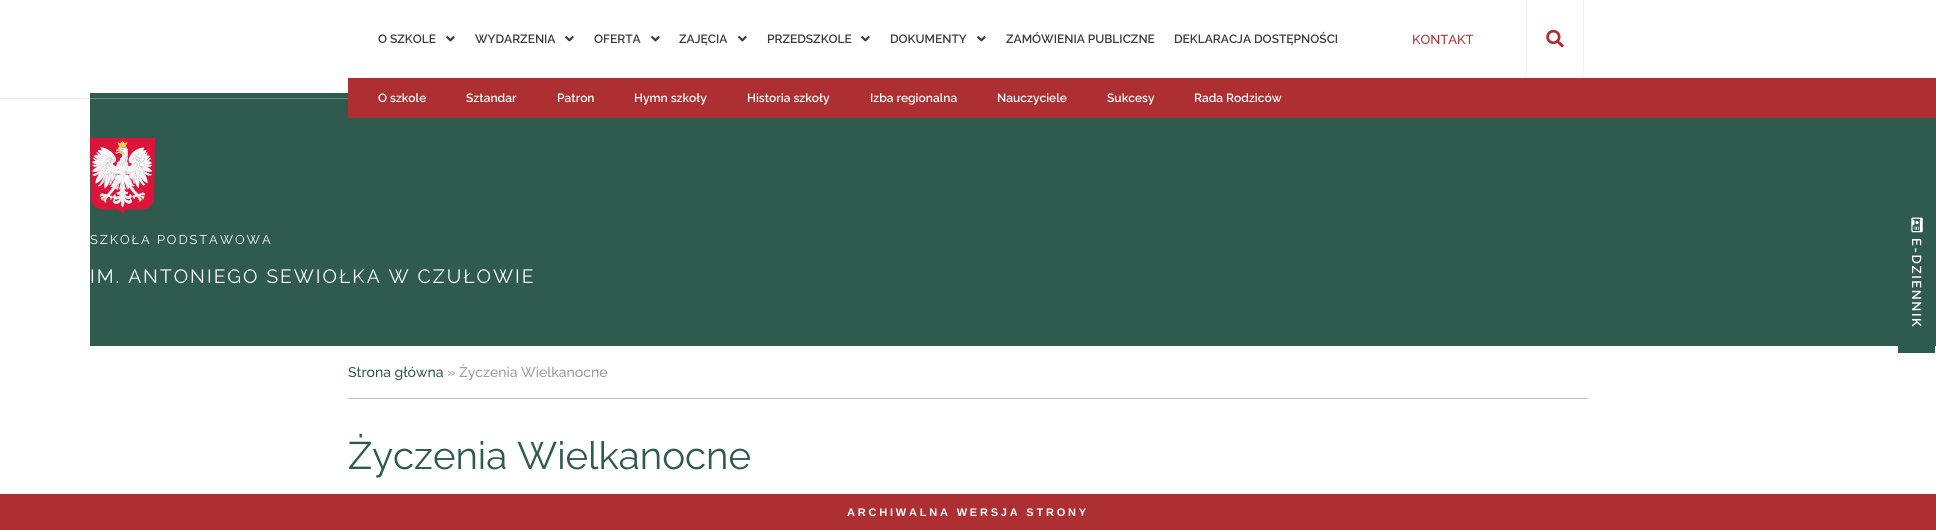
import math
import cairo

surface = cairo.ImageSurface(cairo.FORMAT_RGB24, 1936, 530)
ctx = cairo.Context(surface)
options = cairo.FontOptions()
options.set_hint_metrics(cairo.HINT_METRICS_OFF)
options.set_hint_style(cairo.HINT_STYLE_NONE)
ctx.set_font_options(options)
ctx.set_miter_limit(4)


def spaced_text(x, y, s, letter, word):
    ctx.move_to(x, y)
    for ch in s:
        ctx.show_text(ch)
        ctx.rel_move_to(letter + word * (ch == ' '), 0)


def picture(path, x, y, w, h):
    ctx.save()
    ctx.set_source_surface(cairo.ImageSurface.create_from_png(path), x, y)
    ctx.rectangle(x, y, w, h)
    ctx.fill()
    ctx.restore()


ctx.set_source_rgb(1, 1, 1)
ctx.paint()
ctx.select_font_face("Raleway SemiBold")
ctx.set_font_size(12)
ctx.set_source_rgb(0.235, 0.235, 0.235)
ctx.move_to(378, 43)
ctx.show_text("O SZKOLE")
picture("img1.png", 446, 36, 9, 6)
ctx.move_to(475, 43)
ctx.show_text("WYDARZENIA")
picture("img1.png", 565, 36, 9, 6)
ctx.move_to(594, 43)
ctx.show_text("OFERTA")
picture("img1.png", 651, 36, 9, 6)
ctx.move_to(679, 43)
ctx.show_text("ZAJĘCIA")
picture("img1.png", 738, 36, 9, 6)
ctx.move_to(767, 43)
ctx.show_text("PRZEDSZKOLE")
picture("img1.png", 861, 36, 9, 6)
ctx.move_to(890, 43)
ctx.show_text("DOKUMENTY")
picture("img1.png", 977, 36, 9, 6)
ctx.move_to(1006, 43)
ctx.show_text("ZAMÓWIENIA PUBLICZNE")
ctx.move_to(1174, 43)
ctx.show_text("DEKLARACJA DOSTĘPNOŚCI")
ctx.select_font_face("Raleway Medium")
ctx.set_font_size(13)
ctx.set_source_rgb(0.678, 0.184, 0.196)
ctx.move_to(1412, 44)
ctx.show_text("KONTAKT")
ctx.set_source_rgb(0.949, 0.949, 0.949)
ctx.rectangle(1583, 0, 1, 78)
ctx.fill()
ctx.rectangle(1526, 0, 1, 78)
ctx.fill()
picture("img2.png", 1546, 29, 18, 19)
ctx.set_source_rgb(0.184, 0.357, 0.306)
ctx.rectangle(90, 93, 1846, 253)
ctx.fill()
picture("img3.png", 0, 78, 1936, 40)
ctx.set_source_rgb(0.678, 0.184, 0.196)
ctx.rectangle(348, 78, 308, 40)
ctx.fill()
ctx.select_font_face("Raleway SemiBold")
ctx.set_font_size(12)
ctx.set_source_rgb(1, 1, 1)
ctx.move_to(378, 102)
ctx.show_text("O szkole")
ctx.move_to(466, 102)
ctx.show_text("Sztandar")
ctx.move_to(557, 102)
ctx.show_text("Patron")
ctx.move_to(634, 102)
ctx.show_text("Hymn szkoły")
ctx.move_to(747, 102)
ctx.show_text("Historia szkoły")
ctx.move_to(870, 102)
ctx.show_text("Izba regionalna")
ctx.move_to(997, 102)
ctx.show_text("Nauczyciele")
ctx.move_to(1107, 102)
ctx.show_text("Sukcesy")
ctx.move_to(1194, 102)
ctx.show_text("Rada Rodziców")
picture("img4.png", 90, 138, 65, 76)
ctx.select_font_face("Raleway")
ctx.set_font_size(12.75)
spaced_text(90, 244, "SZKOŁA PODSTAWOWA", 2, 0)
ctx.set_font_size(19.2)
spaced_text(90, 283, "IM. ANTONIEGO SEWIOŁKA W CZUŁOWIE", 2, 0)
ctx.set_source_rgb(0.184, 0.357, 0.306)
ctx.rectangle(1898, 346, 37, 7)
ctx.fill()
picture("img5.png", 1911, 217, 12, 16)
ctx.select_font_face("Raleway SemiBold")
ctx.set_font_size(13)
ctx.set_source_rgb(1, 1, 1)
ctx.save()
ctx.translate(1912, 238)
ctx.rotate(90 * math.pi / 180)
spaced_text(0, 0, "E-DZIENNIK", 1.6, 0)
ctx.restore()
ctx.set_source_rgb(0.678, 0.184, 0.196)
ctx.rectangle(0, 494, 1936, 36)
ctx.fill()
ctx.select_font_face("Liberation Sans", cairo.FONT_SLANT_NORMAL, cairo.FONT_WEIGHT_BOLD)
ctx.set_font_size(11)
ctx.set_source_rgb(1, 1, 1)
spaced_text(847, 516, "ARCHIWALNA WERSJA STRONY", 2.8, 0)
ctx.set_source_rgb(0.765, 0.765, 0.765)
ctx.rectangle(348, 398, 1240, 1)
ctx.fill()
ctx.select_font_face("Raleway Medium")
ctx.set_font_size(14)
ctx.set_source_rgb(0.184, 0.357, 0.306)
ctx.move_to(348, 377)
ctx.show_text("Strona główna")
ctx.set_source_rgb(0.612, 0.612, 0.612)
ctx.move_to(447, 377)
ctx.show_text("» Życzenia Wielkanocne")
ctx.select_font_face("Raleway")
ctx.set_font_size(38.4)
ctx.set_source_rgb(0.184, 0.357, 0.306)
ctx.move_to(348, 469)
ctx.show_text("Życzenia Wielkanocne")
surface.write_to_png("page.png")
